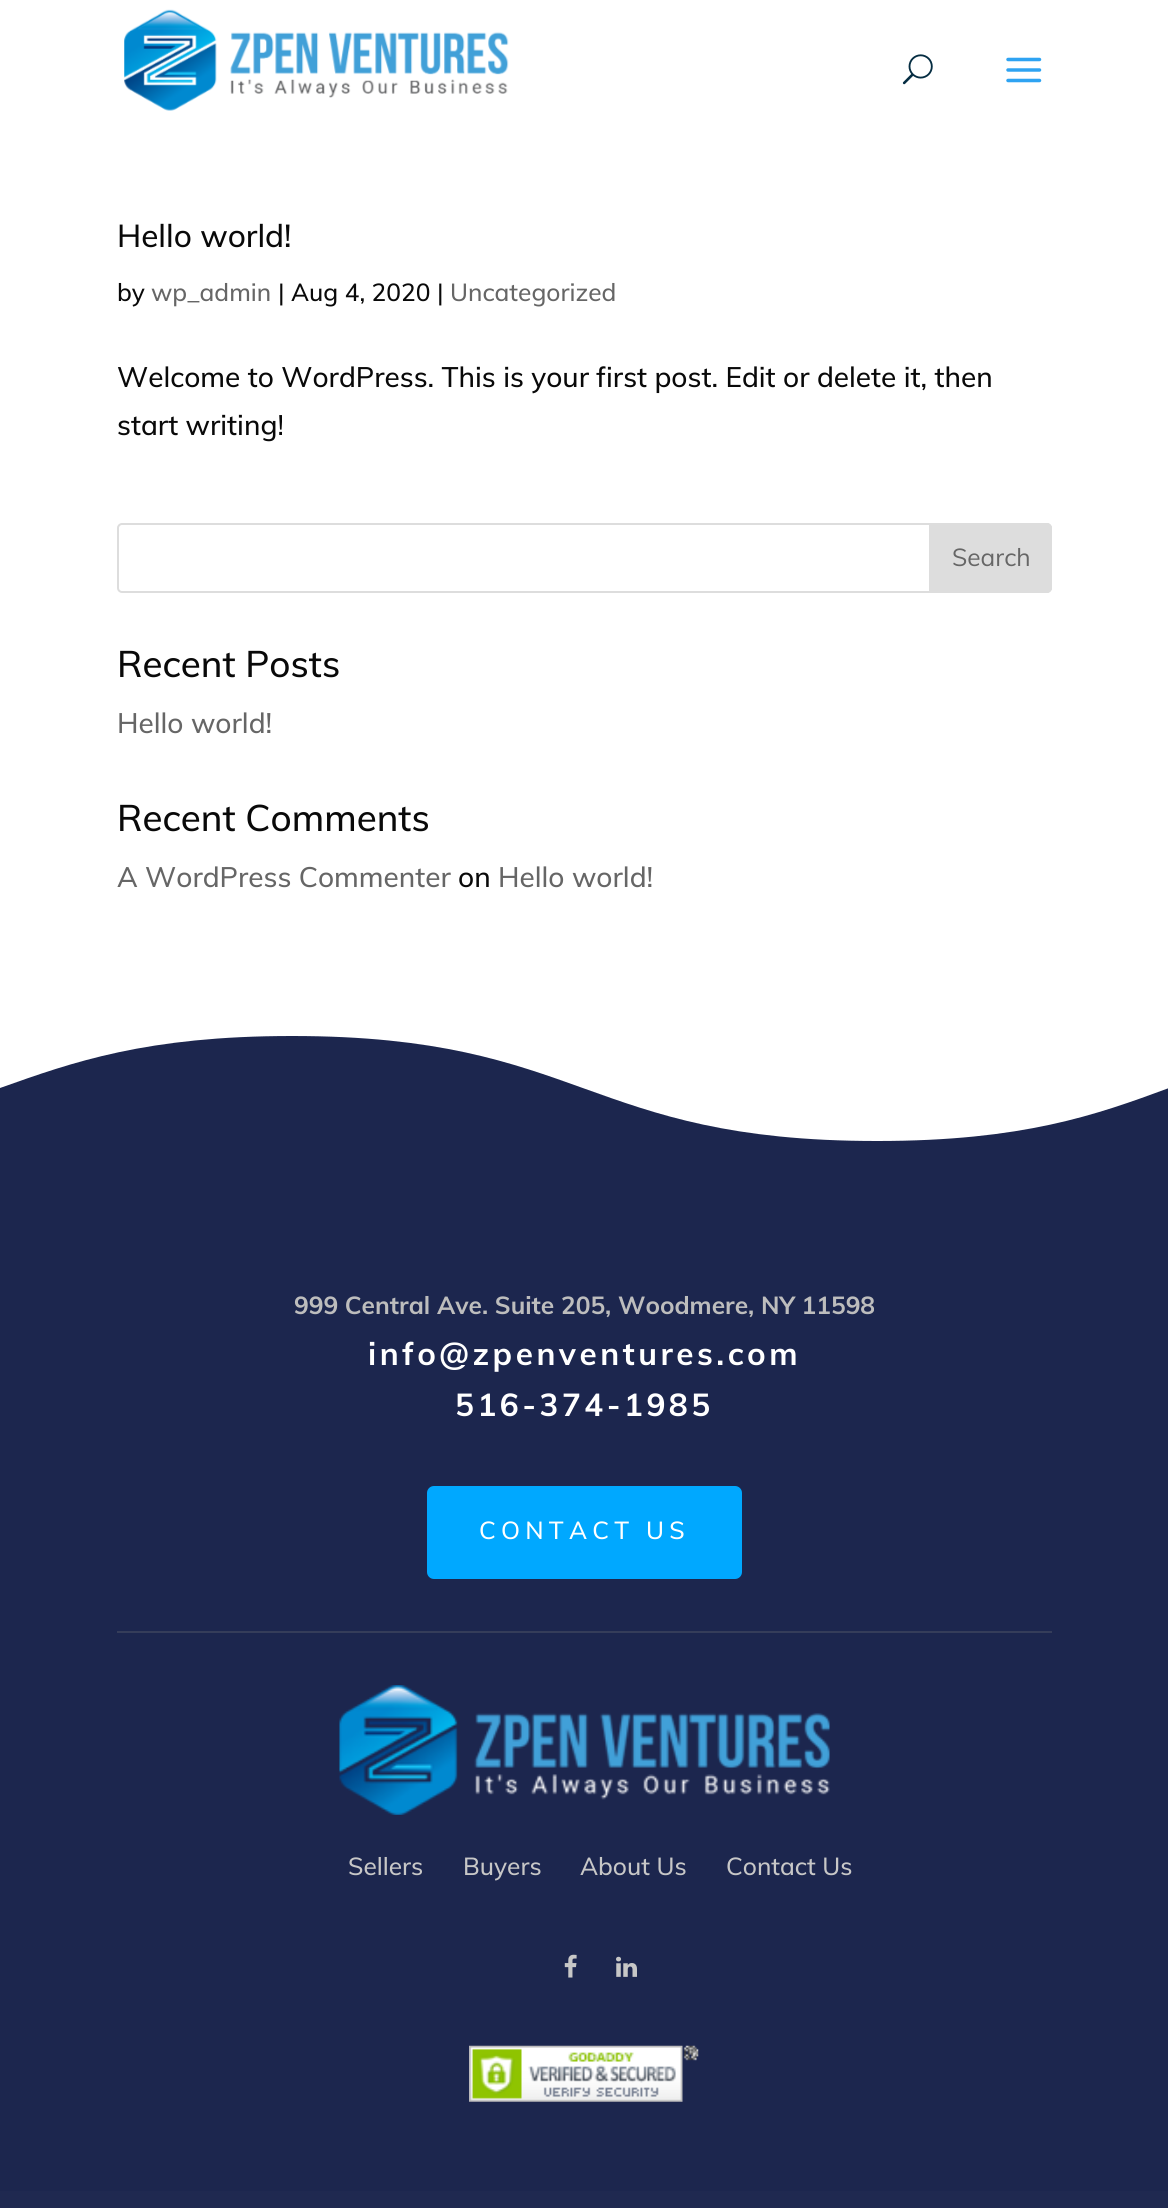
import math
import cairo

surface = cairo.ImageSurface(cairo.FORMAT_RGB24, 1168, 2208)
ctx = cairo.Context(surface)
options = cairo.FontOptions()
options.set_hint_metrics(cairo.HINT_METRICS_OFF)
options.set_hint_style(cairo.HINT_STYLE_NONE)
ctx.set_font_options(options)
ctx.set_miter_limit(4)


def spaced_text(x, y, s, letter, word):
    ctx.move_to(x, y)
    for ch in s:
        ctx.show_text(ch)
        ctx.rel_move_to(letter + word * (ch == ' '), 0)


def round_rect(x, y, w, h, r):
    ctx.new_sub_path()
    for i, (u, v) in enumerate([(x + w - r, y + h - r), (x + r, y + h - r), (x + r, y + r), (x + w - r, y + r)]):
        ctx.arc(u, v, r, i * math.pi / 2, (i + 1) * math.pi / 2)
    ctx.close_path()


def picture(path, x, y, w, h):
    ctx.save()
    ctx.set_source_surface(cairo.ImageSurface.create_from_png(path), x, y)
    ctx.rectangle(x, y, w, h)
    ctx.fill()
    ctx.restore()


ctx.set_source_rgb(1, 1, 1)
ctx.paint()
picture("img1.png", 124, 9, 385, 102)
picture("img2.png", 902, 54, 31, 31)
picture("img3.png", 1006, 57, 36, 26)
ctx.select_font_face("Muli Medium")
ctx.set_font_size(31.5)
ctx.set_source_rgb(0.039, 0.039, 0.039)
ctx.move_to(117, 247)
ctx.show_text("Hello world!")
ctx.set_font_size(24.5)
ctx.move_to(117, 301)
ctx.show_text("by")
ctx.set_source_rgb(0.4, 0.4, 0.4)
ctx.move_to(151, 301)
ctx.show_text("wp_admin")
ctx.set_source_rgb(0.039, 0.039, 0.039)
ctx.move_to(278, 301)
ctx.show_text("| Aug 4, 2020 |")
ctx.set_source_rgb(0.4, 0.4, 0.4)
ctx.move_to(450, 301)
ctx.show_text("Uncategorized")
ctx.set_font_size(28)
ctx.set_source_rgb(0.039, 0.039, 0.039)
ctx.move_to(117, 387)
ctx.show_text("Welcome to WordPress. This is your first post. Edit or delete it, then")
ctx.move_to(117, 435)
ctx.show_text("start writing!")
round_rect(118, 524, 933, 68, 4)
ctx.set_source_rgb(0.867, 0.867, 0.867)
ctx.stroke()
ctx.new_path()
ctx.move_to(930, 524)
ctx.line_to(1047, 524)
ctx.curve_to(1049, 524, 1051, 526, 1051, 528)
ctx.line_to(1051, 588)
ctx.curve_to(1051, 590, 1049, 592, 1047, 592)
ctx.line_to(930, 592)
ctx.close_path()
ctx.fill_preserve()
ctx.stroke()
ctx.select_font_face("Muli")
ctx.set_font_size(24.5)
ctx.set_source_rgb(0.4, 0.4, 0.4)
ctx.move_to(952, 566)
ctx.show_text("Search")
ctx.select_font_face("Muli Medium")
ctx.set_font_size(36.75)
ctx.set_source_rgb(0.039, 0.039, 0.039)
ctx.move_to(117, 677)
ctx.show_text("Recent Posts")
ctx.set_font_size(28)
ctx.set_source_rgb(0.4, 0.4, 0.4)
ctx.move_to(117, 733)
ctx.show_text("Hello world!")
ctx.set_font_size(36.75)
ctx.set_source_rgb(0.039, 0.039, 0.039)
ctx.move_to(117, 831)
ctx.show_text("Recent Comments")
ctx.set_font_size(28)
ctx.set_source_rgb(0.4, 0.4, 0.4)
ctx.move_to(117, 887)
ctx.show_text("A WordPress Commenter")
ctx.set_source_rgb(0.039, 0.039, 0.039)
ctx.move_to(458, 887)
ctx.show_text("on")
ctx.set_source_rgb(0.4, 0.4, 0.4)
ctx.move_to(498, 887)
ctx.show_text("Hello world!")
ctx.set_source_rgb(0.11, 0.149, 0.306)
ctx.rectangle(0, 1036, 1168, 1155)
ctx.fill()
ctx.set_source_rgb(1, 1, 1)
ctx.new_path()
ctx.move_to(292, 1036)
ctx.curve_to(146, 1036, 73, 1062, 0, 1088)
ctx.line_to(0, 1001)
ctx.line_to(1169, 1001)
ctx.line_to(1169, 1088)
ctx.curve_to(1096, 1115, 1023, 1141, 877, 1141)
ctx.curve_to(584, 1141, 584, 1036, 292, 1036)
ctx.close_path()
ctx.fill()
ctx.select_font_face("Muli", cairo.FONT_SLANT_NORMAL, cairo.FONT_WEIGHT_BOLD)
ctx.set_font_size(24.5)
ctx.set_source_rgb(0.741, 0.741, 0.741)
ctx.move_to(294, 1314)
ctx.show_text("999 Central Ave. Suite 205, Woodmere, NY 11598")
ctx.set_font_size(31.5)
ctx.set_source_rgb(1, 1, 1)
spaced_text(368, 1365, "info@zpenventures.com", 3.5, 0)
spaced_text(455, 1416, "516-374-1985", 3.5, 0)
ctx.set_source_rgb(0, 0.659, 1)
round_rect(427, 1486, 315, 93, 7)
ctx.fill()
ctx.select_font_face("Muli Medium")
ctx.set_font_size(24.5)
ctx.set_source_rgb(1, 1, 1)
spaced_text(479, 1539, "CONTACT US", 5.25, 0)
ctx.set_source_rgb(0.208, 0.239, 0.353)
ctx.rectangle(117, 1631, 935, 2)
ctx.fill()
picture("img4.png", 339, 1685, 491, 130)
ctx.set_source_rgb(0.78, 0.78, 0.78)
ctx.move_to(348, 1875)
ctx.show_text("Sellers")
ctx.move_to(463, 1875)
ctx.show_text("Buyers")
ctx.move_to(580, 1875)
ctx.show_text("About Us")
ctx.move_to(726, 1875)
ctx.show_text("Contact Us")
picture("img5.png", 564, 1954, 13, 24)
picture("img6.png", 616, 1956, 21, 21)
picture("img7.png", 469, 2045, 230, 57)
ctx.set_source_rgb(0.122, 0.161, 0.314)
ctx.rectangle(0, 2191, 1168, 17)
ctx.fill()
surface.write_to_png("page.png")
